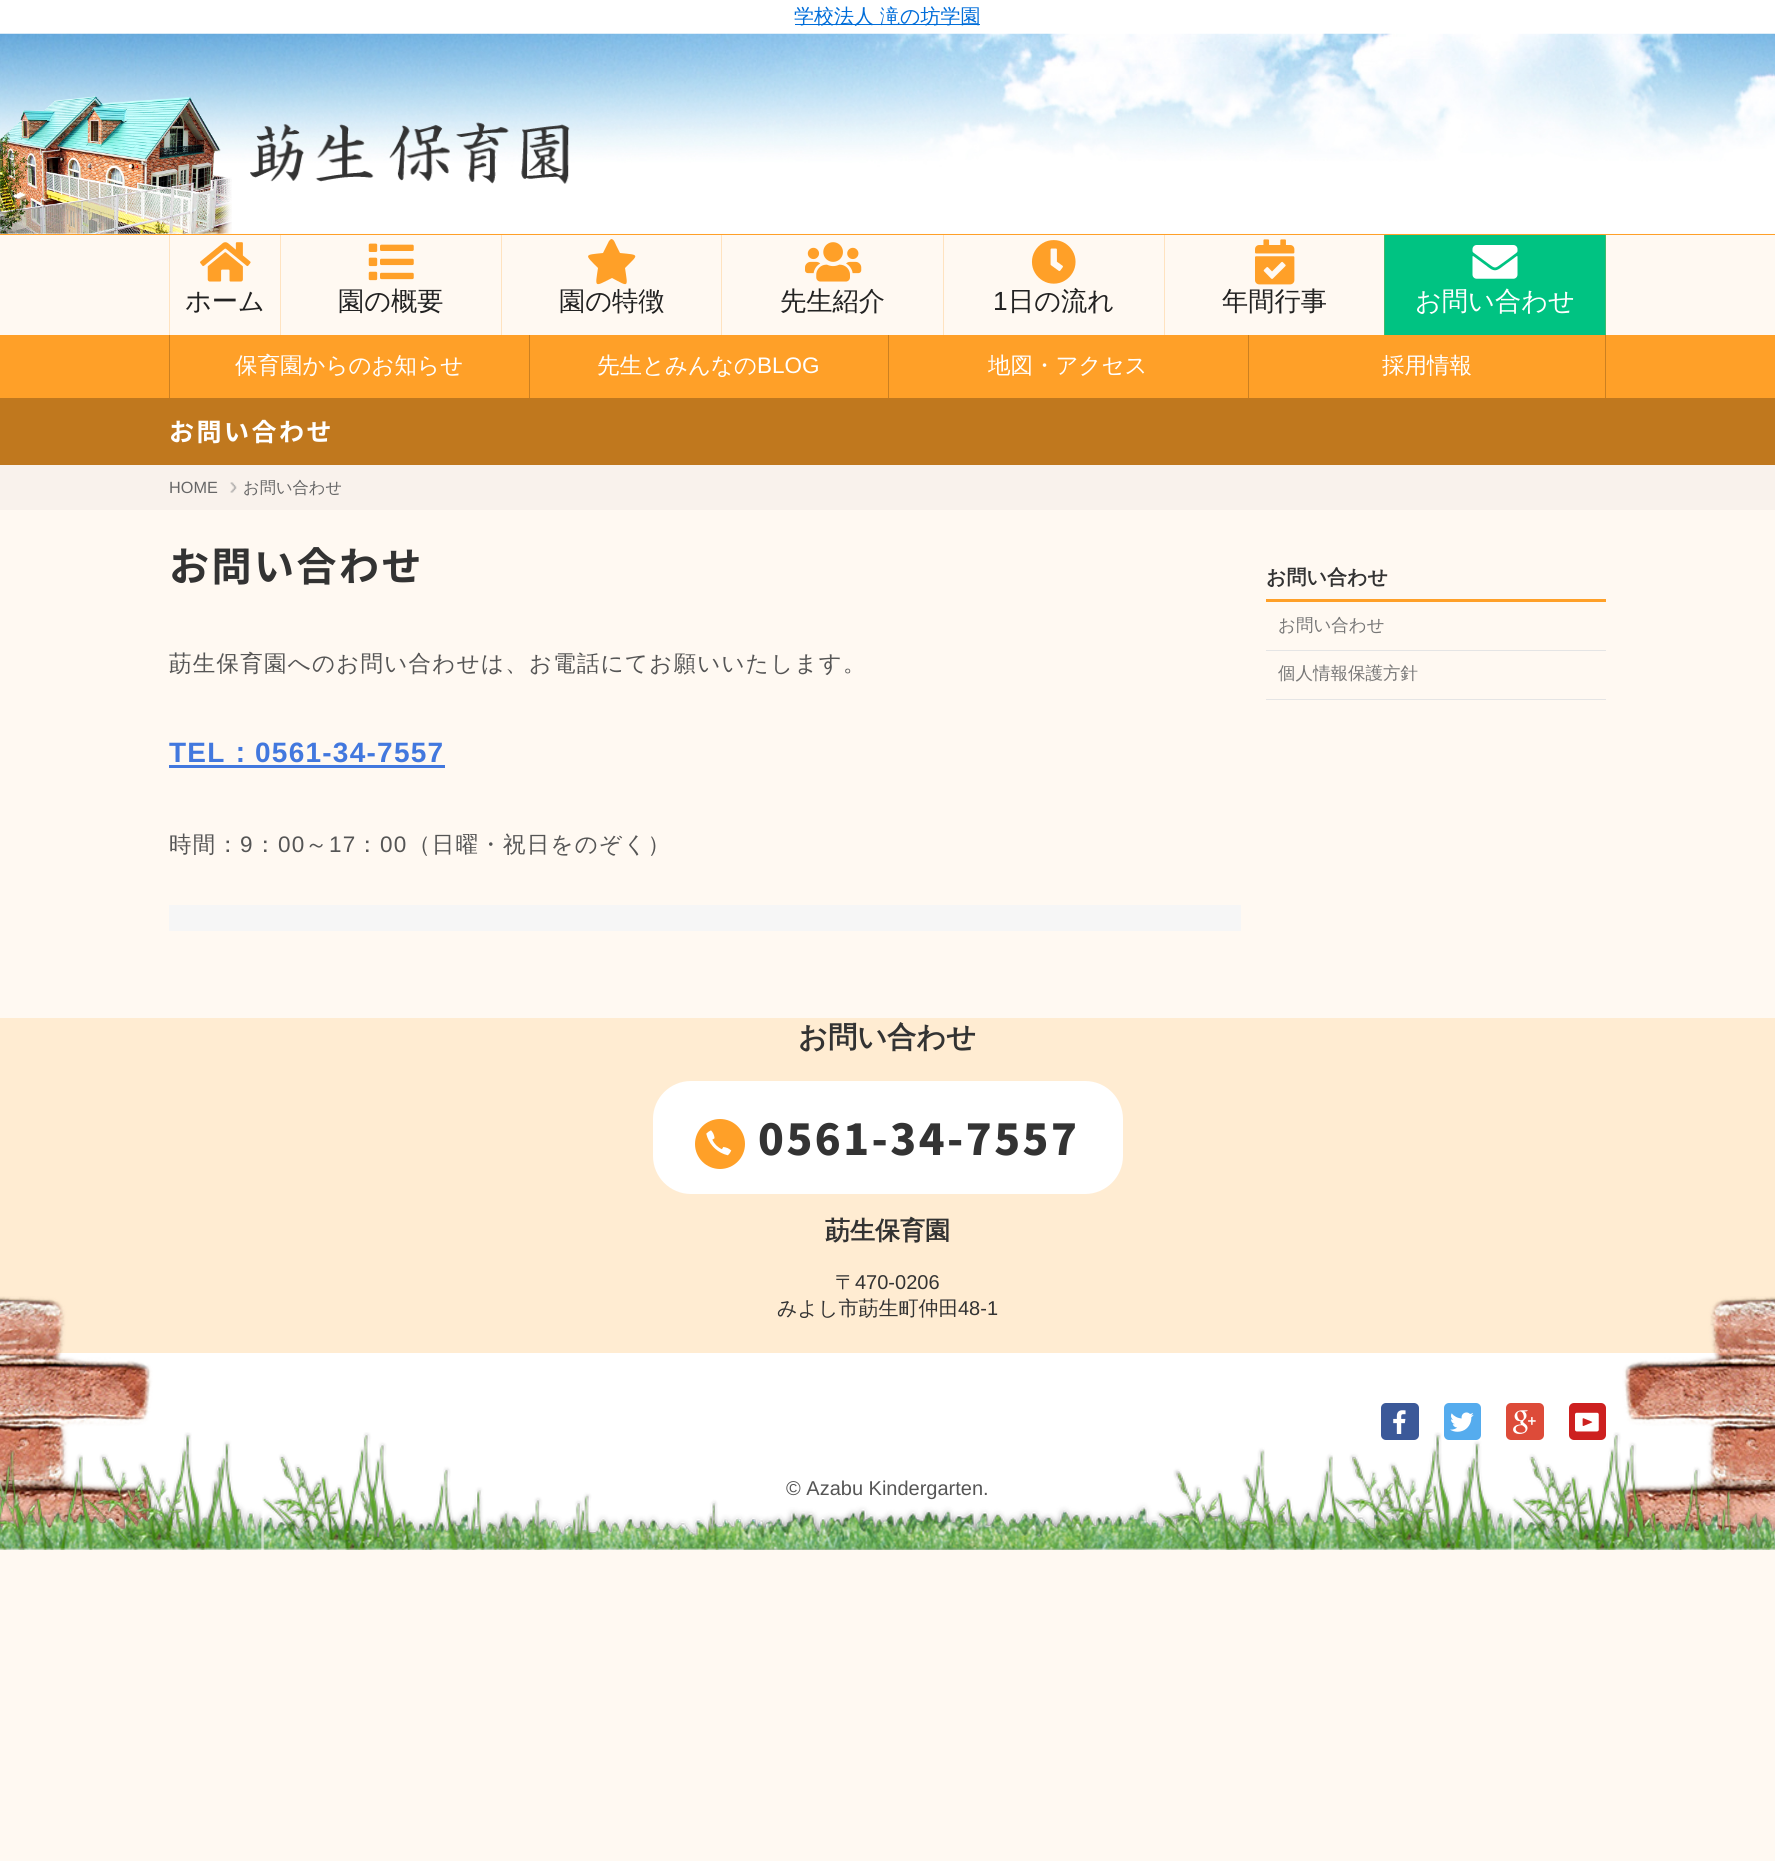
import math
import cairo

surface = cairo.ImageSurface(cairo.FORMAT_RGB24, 1775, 1861)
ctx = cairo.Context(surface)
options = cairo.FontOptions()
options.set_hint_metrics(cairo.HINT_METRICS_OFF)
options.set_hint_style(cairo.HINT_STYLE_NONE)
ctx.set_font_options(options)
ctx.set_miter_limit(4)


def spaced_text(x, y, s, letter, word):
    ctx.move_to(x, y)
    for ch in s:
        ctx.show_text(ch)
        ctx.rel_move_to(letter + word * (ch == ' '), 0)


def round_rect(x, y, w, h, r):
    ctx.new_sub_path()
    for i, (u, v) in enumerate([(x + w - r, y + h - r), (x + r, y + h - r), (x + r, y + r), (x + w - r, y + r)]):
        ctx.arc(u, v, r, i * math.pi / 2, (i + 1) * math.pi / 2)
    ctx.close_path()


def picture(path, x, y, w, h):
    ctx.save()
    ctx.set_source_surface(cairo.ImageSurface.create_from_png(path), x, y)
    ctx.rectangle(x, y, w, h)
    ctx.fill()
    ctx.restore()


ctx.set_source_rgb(1, 0.976, 0.949)
ctx.paint()
ctx.set_source_rgb(1, 1, 1)
ctx.rectangle(0, 0, 1775, 34)
ctx.fill()
ctx.set_source_rgb(0, 0.427, 0.851)
ctx.rectangle(795, 24, 185, 1)
ctx.fill()
ctx.select_font_face("WenQuanYi Zen Hei Medium")
ctx.set_font_size(20)
ctx.move_to(794, 23)
ctx.show_text("学校法人 滝の坊学園")
picture("img1.png", 0, 33, 1775, 201)
picture("img2.png", 0, 96, 232, 138)
picture("img3.png", 250, 122, 320, 62)
ctx.set_source_rgb(1, 0.627, 0.157)
ctx.rectangle(0, 234, 1775, 1)
ctx.fill()
ctx.set_source_rgb(1, 0.89, 0.753)
ctx.rectangle(169, 235, 1, 100)
ctx.fill()
picture("img4.png", 200, 242, 51, 40)
ctx.set_font_size(26.25)
ctx.set_source_rgb(0.133, 0.133, 0.133)
ctx.move_to(185, 310)
ctx.show_text("ホーム")
ctx.set_source_rgb(1, 0.89, 0.753)
ctx.rectangle(280, 235, 1, 100)
ctx.fill()
picture("img5.png", 368, 243, 46, 38)
ctx.set_source_rgb(0.133, 0.133, 0.133)
ctx.move_to(338, 310)
ctx.show_text("園の概要")
ctx.set_source_rgb(1, 0.89, 0.753)
ctx.rectangle(501, 235, 1, 100)
ctx.fill()
ctx.set_source_rgb(1, 0.627, 0.157)
ctx.new_path()
ctx.move_to(609, 241)
ctx.line_to(603, 253)
ctx.curve_to(584, 255, 584, 254, 598, 268)
ctx.curve_to(595, 288, 594, 287, 612, 278)
ctx.curve_to(629, 287, 628, 288, 625, 268)
ctx.curve_to(639, 254, 640, 255, 620, 253)
ctx.line_to(616, 245)
ctx.curve_to(615, 243, 614, 239, 611, 239)
ctx.close_path()
ctx.fill()
ctx.set_source_rgb(0.133, 0.133, 0.133)
ctx.move_to(559, 310)
ctx.show_text("園の特徴")
ctx.set_source_rgb(1, 0.89, 0.753)
ctx.rectangle(721, 235, 1, 100)
ctx.fill()
picture("img6.png", 805, 242, 57, 40)
ctx.set_source_rgb(0.133, 0.133, 0.133)
ctx.move_to(780, 310)
ctx.show_text("先生紹介")
ctx.set_source_rgb(1, 0.89, 0.753)
ctx.rectangle(943, 235, 1, 100)
ctx.fill()
picture("img7.png", 1031, 240, 45, 44)
ctx.select_font_face("Liberation Sans")
ctx.set_source_rgb(0.133, 0.133, 0.133)
ctx.move_to(993, 310)
ctx.show_text("1")
ctx.select_font_face("WenQuanYi Zen Hei Medium")
ctx.move_to(1008, 310)
ctx.show_text("日の流れ")
ctx.set_source_rgb(1, 0.89, 0.753)
ctx.rectangle(1164, 235, 1, 100)
ctx.fill()
picture("img8.png", 1255, 239, 40, 46)
ctx.set_source_rgb(0.133, 0.133, 0.133)
ctx.move_to(1222, 310)
ctx.show_text("年間行事")
ctx.set_source_rgb(0, 0.765, 0.51)
ctx.rectangle(1385, 235, 220, 100)
ctx.fill()
ctx.set_source_rgb(0.251, 0.729, 0.424)
ctx.rectangle(1605, 235, 1, 100)
ctx.fill()
ctx.rectangle(1384, 235, 1, 100)
ctx.fill()
picture("img9.png", 1472, 245, 46, 34)
ctx.set_source_rgb(1, 1, 1)
ctx.move_to(1415, 310)
ctx.show_text("お問い合わせ")
ctx.set_source_rgb(1, 0.627, 0.157)
ctx.rectangle(0, 335, 1775, 63)
ctx.fill()
ctx.set_source_rgb(0.8, 0.502, 0.125)
ctx.rectangle(169, 335, 1, 63)
ctx.fill()
ctx.set_font_size(22.5)
ctx.set_source_rgb(1, 1, 1)
ctx.move_to(235, 373)
ctx.show_text("保育園からのお知らせ")
ctx.set_source_rgb(0.8, 0.502, 0.125)
ctx.rectangle(529, 335, 1, 63)
ctx.fill()
ctx.set_source_rgb(1, 1, 1)
ctx.move_to(597, 373)
ctx.show_text("先生とみんなの")
ctx.select_font_face("Liberation Sans")
ctx.move_to(757, 373)
ctx.show_text("BLOG")
ctx.set_source_rgb(0.8, 0.502, 0.125)
ctx.rectangle(888, 335, 1, 63)
ctx.fill()
ctx.select_font_face("WenQuanYi Zen Hei Medium")
ctx.set_source_rgb(1, 1, 1)
ctx.move_to(988, 373)
ctx.show_text("地図・アクセス")
ctx.set_source_rgb(0.8, 0.502, 0.125)
ctx.rectangle(1605, 335, 1, 63)
ctx.fill()
ctx.rectangle(1248, 335, 1, 63)
ctx.fill()
ctx.set_source_rgb(1, 1, 1)
ctx.move_to(1382, 373)
ctx.show_text("採用情報")
ctx.set_source_rgb(0.753, 0.471, 0.118)
ctx.rectangle(0, 398, 1775, 67)
ctx.fill()
ctx.select_font_face("Noto Sans JP", cairo.FONT_SLANT_NORMAL, cairo.FONT_WEIGHT_BOLD)
ctx.set_font_size(25)
ctx.set_source_rgb(1, 1, 1)
spaced_text(169, 441, "お問い合わせ", 2.5, 0)
ctx.set_source_rgb(0.973, 0.949, 0.922)
ctx.rectangle(0, 465, 1775, 45)
ctx.fill()
ctx.select_font_face("Liberation Sans")
ctx.set_font_size(16.25)
ctx.set_source_rgb(0.4, 0.4, 0.4)
ctx.move_to(169, 493)
ctx.show_text("HOME")
picture("img10.png", 230, 482, 7, 11)
ctx.select_font_face("WenQuanYi Zen Hei Medium")
ctx.move_to(243, 493)
ctx.show_text("お問い合わせ")
ctx.select_font_face("Noto Sans JP", cairo.FONT_SLANT_NORMAL, cairo.FONT_WEIGHT_BOLD)
ctx.set_font_size(40)
ctx.set_source_rgb(0.2, 0.2, 0.2)
spaced_text(169, 581, "お問い合わせ", 2.5, 0)
ctx.select_font_face("WenQuanYi Zen Hei Medium")
ctx.set_font_size(22.5)
ctx.set_source_rgb(0.333, 0.333, 0.333)
spaced_text(169, 671, "莇生保育園へのお問い合わせは、お電話にてお願いいたします。", 1.25, 0)
ctx.select_font_face("Liberation Sans", cairo.FONT_SLANT_NORMAL, cairo.FONT_WEIGHT_BOLD)
ctx.set_font_size(28)
ctx.set_source_rgb(0.259, 0.471, 0.871)
spaced_text(169, 762, "TEL", 1.25, 0)
ctx.select_font_face("WenQuanYi Zen Hei", cairo.FONT_SLANT_NORMAL, cairo.FONT_WEIGHT_BOLD)
spaced_text(226, 762, "：", 1.25, 0)
ctx.rectangle(169, 765, 276, 3)
ctx.fill()
ctx.select_font_face("Liberation Sans", cairo.FONT_SLANT_NORMAL, cairo.FONT_WEIGHT_BOLD)
spaced_text(255, 762, "0561-34-7557", 1.25, 0)
ctx.select_font_face("WenQuanYi Zen Hei Medium")
ctx.set_font_size(22.5)
ctx.set_source_rgb(0.333, 0.333, 0.333)
spaced_text(169, 852, "時間：", 1.25, 0)
ctx.select_font_face("Liberation Sans")
spaced_text(240, 852, "9", 1.25, 0)
ctx.select_font_face("WenQuanYi Zen Hei Medium")
spaced_text(254, 852, "：", 1.25, 0)
ctx.select_font_face("Liberation Sans")
spaced_text(278, 852, "00", 1.25, 0)
ctx.select_font_face("WenQuanYi Zen Hei Medium")
spaced_text(305, 852, "～", 1.25, 0)
ctx.select_font_face("Liberation Sans")
spaced_text(329, 852, "17", 1.25, 0)
ctx.select_font_face("WenQuanYi Zen Hei Medium")
spaced_text(356, 852, "：", 1.25, 0)
ctx.select_font_face("Liberation Sans")
spaced_text(380, 852, "00", 1.25, 0)
ctx.select_font_face("WenQuanYi Zen Hei Medium")
spaced_text(408, 852, "（日曜・祝日をのぞく）", 1.25, 0)
ctx.set_source_rgb(0.961, 0.961, 0.961)
ctx.rectangle(169, 905, 1072, 26)
ctx.fill()
ctx.set_source_rgb(1, 0.627, 0.157)
ctx.rectangle(1266, 599, 340, 3)
ctx.fill()
ctx.select_font_face("WenQuanYi Zen Hei", cairo.FONT_SLANT_NORMAL, cairo.FONT_WEIGHT_BOLD)
ctx.set_font_size(20)
ctx.set_source_rgb(0.2, 0.2, 0.2)
ctx.move_to(1266, 584)
ctx.show_text("お問い合わせ")
ctx.set_source_rgb(0.898, 0.898, 0.898)
ctx.rectangle(1266, 650, 340, 1)
ctx.fill()
ctx.select_font_face("WenQuanYi Zen Hei Medium")
ctx.set_font_size(17.5)
ctx.set_source_rgb(0.467, 0.467, 0.467)
ctx.move_to(1278, 631)
ctx.show_text("お問い合わせ")
ctx.set_source_rgb(0.898, 0.898, 0.898)
ctx.rectangle(1266, 699, 340, 1)
ctx.fill()
ctx.set_source_rgb(0.467, 0.467, 0.467)
ctx.move_to(1278, 679)
ctx.show_text("個人情報保護方針")
ctx.set_source_rgb(1, 0.925, 0.824)
ctx.rectangle(0, 1018, 1775, 335)
ctx.fill()
ctx.select_font_face("WenQuanYi Zen Hei", cairo.FONT_SLANT_NORMAL, cairo.FONT_WEIGHT_BOLD)
ctx.set_font_size(29.25)
ctx.set_source_rgb(0.2, 0.2, 0.2)
ctx.move_to(798, 1047)
ctx.show_text("お問い合わせ")
ctx.set_source_rgb(1, 1, 1)
round_rect(653, 1081, 470, 113, 38)
ctx.fill()
ctx.set_source_rgb(1, 0.627, 0.157)
ctx.arc(720, 1144, 25, 0, 2 * math.pi)
ctx.fill()
picture("img11.png", 706, 1130, 26, 26)
ctx.select_font_face("Noto Sans JP Black")
ctx.set_font_size(42.5)
ctx.set_source_rgb(0.2, 0.2, 0.2)
spaced_text(758, 1155, "0561-34-7557", 2.5, 0)
ctx.select_font_face("WenQuanYi Zen Hei", cairo.FONT_SLANT_NORMAL, cairo.FONT_WEIGHT_BOLD)
ctx.set_font_size(25)
ctx.move_to(825, 1239)
ctx.show_text("莇生保育園")
ctx.select_font_face("WenQuanYi Zen Hei Medium")
ctx.set_font_size(20)
ctx.move_to(835, 1289)
ctx.show_text("〒")
ctx.select_font_face("Liberation Sans")
ctx.move_to(855, 1289)
ctx.show_text("470-0206")
ctx.select_font_face("WenQuanYi Zen Hei Medium")
ctx.move_to(777, 1315)
ctx.show_text("みよし市莇生町仲田")
ctx.select_font_face("Liberation Sans")
ctx.move_to(958, 1315)
ctx.show_text("48-1")
ctx.set_source_rgb(1, 1, 1)
ctx.rectangle(0, 1353, 1775, 197)
ctx.fill()
picture("img13.png", 0, 1296, 153, 235)
ctx.set_source_rgb(0.231, 0.349, 0.6)
round_rect(1381, 1403, 38, 37, 5)
ctx.fill()
picture("img14.png", 1393, 1410, 13, 24)
ctx.set_source_rgb(0.333, 0.675, 0.933)
round_rect(1444, 1403, 37, 37, 5)
ctx.fill()
ctx.set_source_rgb(0.867, 0.294, 0.224)
round_rect(1506, 1403, 38, 37, 5)
ctx.fill()
picture("img16.png", 1513, 1410, 23, 24)
ctx.set_source_rgb(0.804, 0.125, 0.122)
round_rect(1569, 1403, 37, 37, 5)
ctx.fill()
picture("img18.png", 1622, 1296, 153, 242)
ctx.set_source_rgb(0.333, 0.333, 0.333)
ctx.move_to(786, 1495)
ctx.show_text("© Azabu Kindergarten.")
picture("img12.png", 0, 1432, 1775, 118)
picture("img15.png", 1450, 1412, 24, 20)
picture("img17.png", 1575, 1412, 24, 20)
surface.write_to_png("page.png")
